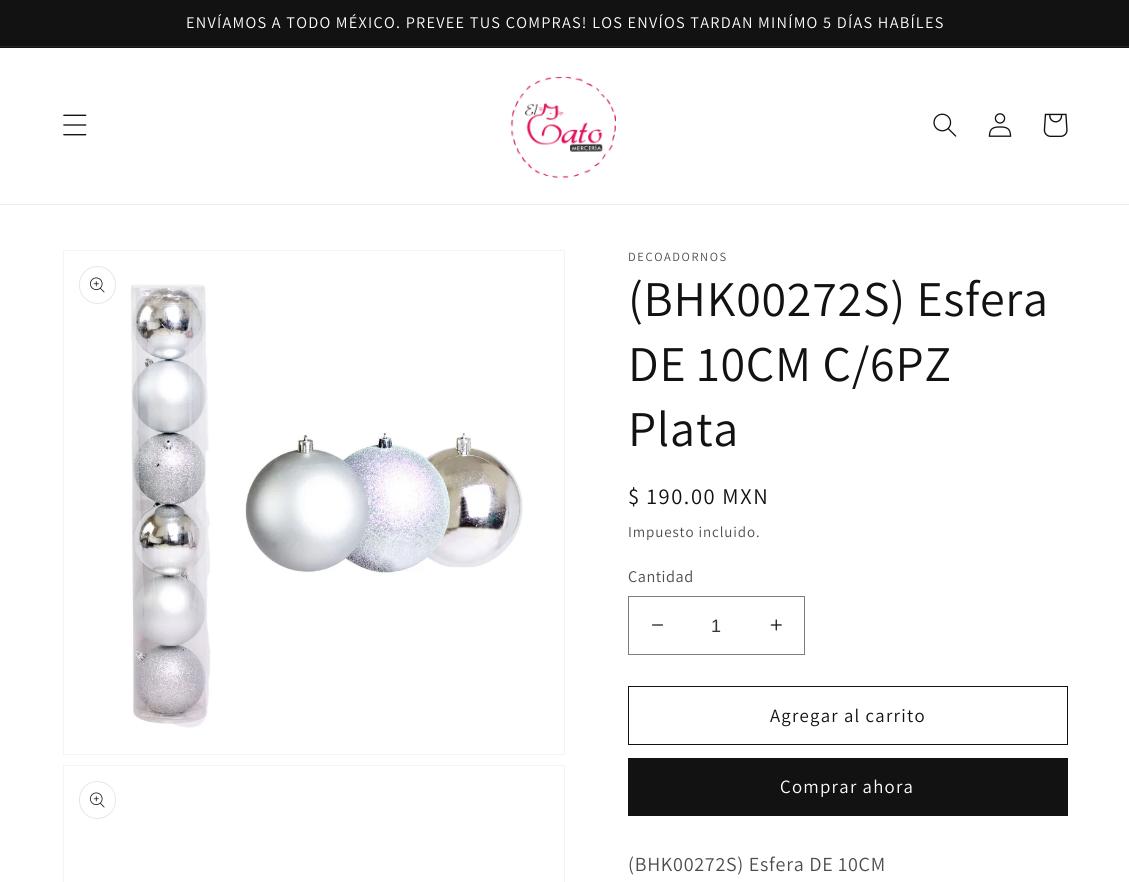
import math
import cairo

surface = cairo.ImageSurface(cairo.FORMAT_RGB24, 1129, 882)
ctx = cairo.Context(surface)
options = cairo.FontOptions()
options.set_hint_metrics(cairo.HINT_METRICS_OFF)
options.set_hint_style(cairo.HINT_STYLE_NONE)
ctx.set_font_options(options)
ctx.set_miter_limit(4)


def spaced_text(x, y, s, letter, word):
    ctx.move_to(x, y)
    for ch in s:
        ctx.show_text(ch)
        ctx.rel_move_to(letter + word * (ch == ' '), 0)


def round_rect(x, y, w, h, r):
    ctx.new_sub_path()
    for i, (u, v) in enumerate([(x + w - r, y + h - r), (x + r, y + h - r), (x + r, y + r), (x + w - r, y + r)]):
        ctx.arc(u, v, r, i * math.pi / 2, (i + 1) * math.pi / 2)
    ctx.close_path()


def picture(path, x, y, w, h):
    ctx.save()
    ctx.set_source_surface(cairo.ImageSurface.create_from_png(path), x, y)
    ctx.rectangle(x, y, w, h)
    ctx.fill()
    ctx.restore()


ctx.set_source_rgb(1, 1, 1)
ctx.paint()
ctx.set_source_rgb(0.071, 0.071, 0.071)
ctx.rectangle(0, 0, 1129, 48)
ctx.fill()
ctx.set_source_rgb(0.145, 0.145, 0.145)
ctx.rectangle(0, 46, 1129, 1)
ctx.fill()
ctx.select_font_face("Assistant")
ctx.set_font_size(16.25)
ctx.set_source_rgb(1, 1, 1)
spaced_text(186, 28, "ENVÍAMOS A TODO MÉXICO. PREVEE TUS COMPRAS! LOS ENVÍOS TARDAN MINÍMO 5 DÍAS HABÍLES", 1.25, 0)
ctx.set_source_rgb(0.925, 0.925, 0.925)
ctx.rectangle(0, 204, 1129, 1)
ctx.fill()
picture("img1.png", 63, 114, 24, 22)
picture("img2.png", 510, 76, 107, 102)
picture("img3.png", 933, 113, 24, 24)
picture("img4.png", 988, 113, 24, 24)
picture("img5.png", 1043, 113, 25, 24)
ctx.rectangle(63.5, 250.5, 501, 504)
ctx.set_source_rgb(0.953, 0.953, 0.953)
ctx.set_line_width(1)
ctx.stroke()
picture("img6.png", 130, 284, 393, 444)
round_rect(79.5, 266.5, 36, 37, 18)
ctx.set_source_rgb(0.906, 0.906, 0.906)
ctx.stroke()
picture("img7.png", 90, 277, 15, 16)
ctx.rectangle(63.5, 765.5, 501, 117)
ctx.set_source_rgb(0.953, 0.953, 0.953)
ctx.stroke()
round_rect(79.5, 781.5, 36, 37, 18)
ctx.set_source_rgb(0.906, 0.906, 0.906)
ctx.stroke()
picture("img7.png", 90, 792, 15, 16)
ctx.set_font_size(12.5)
ctx.set_source_rgb(0.302, 0.302, 0.302)
spaced_text(628, 261, "DECOADORNOS", 1.6, 0)
ctx.set_font_size(50)
ctx.set_source_rgb(0.071, 0.071, 0.071)
spaced_text(628, 316, "(BHK00272S) Esfera", 0.75, 0)
spaced_text(628, 381, "DE 10CM C/6PZ", 0.75, 0)
spaced_text(628, 446, "Plata", 0.75, 0)
ctx.set_font_size(22.5)
spaced_text(628, 504, "$ 190.00 MXN", 1.6, 0)
ctx.set_font_size(15)
ctx.set_source_rgb(0.302, 0.302, 0.302)
spaced_text(628, 537, "Impuesto incluido.", 0.9, 0)
ctx.set_font_size(16.25)
spaced_text(628, 582, "Cantidad", 0.5, 0)
picture("img8.png", 652, 624, 11, 2)
picture("img9.png", 770, 619, 12, 12)
ctx.rectangle(628.5, 596.5, 176, 58)
ctx.set_source_rgb(0.49, 0.49, 0.49)
ctx.stroke()
ctx.select_font_face("Liberation Sans")
ctx.set_font_size(18)
ctx.set_source_rgb(0.212, 0.212, 0.212)
ctx.move_to(711, 632)
ctx.show_text("1")
ctx.rectangle(628.5, 686.5, 439, 58)
ctx.set_source_rgb(0.071, 0.071, 0.071)
ctx.stroke()
ctx.select_font_face("Assistant")
ctx.set_font_size(18.75)
spaced_text(770, 722, "Agregar al carrito", 1.25, 0)
ctx.rectangle(628, 758, 440, 58)
ctx.fill()
ctx.set_source_rgb(1, 1, 1)
spaced_text(780, 793, "Comprar ahora", 1.25, 0)
ctx.set_font_size(20)
ctx.set_source_rgb(0.302, 0.302, 0.302)
spaced_text(628, 871, "(BHK00272S) Esfera DE 10CM", 0.75, 0)
surface.write_to_png("page.png")
